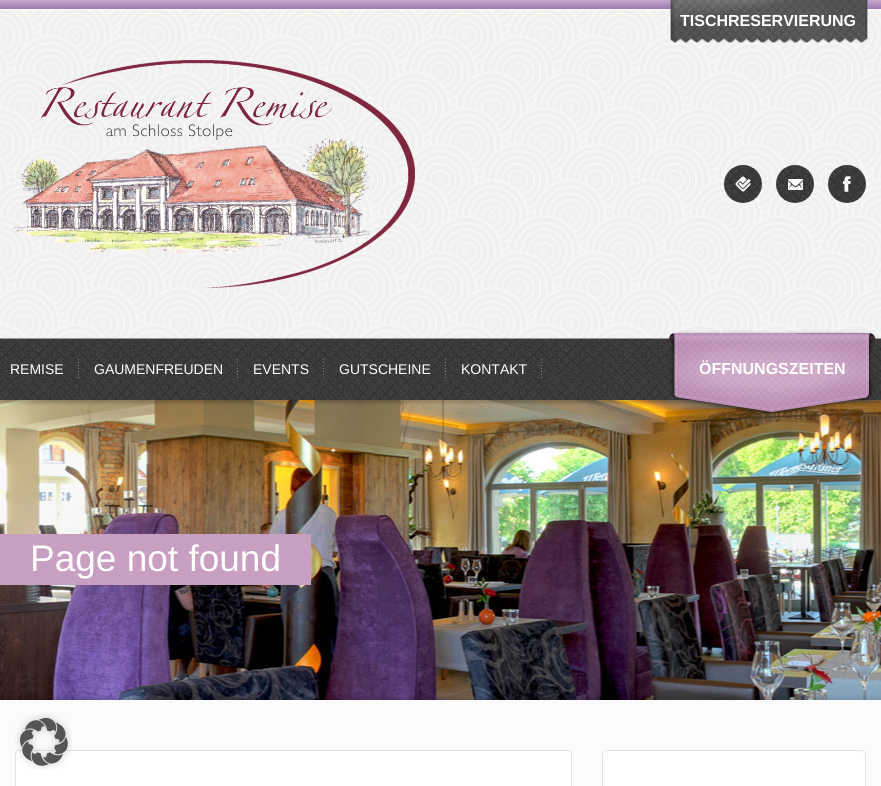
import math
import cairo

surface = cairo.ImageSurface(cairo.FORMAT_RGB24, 881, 786)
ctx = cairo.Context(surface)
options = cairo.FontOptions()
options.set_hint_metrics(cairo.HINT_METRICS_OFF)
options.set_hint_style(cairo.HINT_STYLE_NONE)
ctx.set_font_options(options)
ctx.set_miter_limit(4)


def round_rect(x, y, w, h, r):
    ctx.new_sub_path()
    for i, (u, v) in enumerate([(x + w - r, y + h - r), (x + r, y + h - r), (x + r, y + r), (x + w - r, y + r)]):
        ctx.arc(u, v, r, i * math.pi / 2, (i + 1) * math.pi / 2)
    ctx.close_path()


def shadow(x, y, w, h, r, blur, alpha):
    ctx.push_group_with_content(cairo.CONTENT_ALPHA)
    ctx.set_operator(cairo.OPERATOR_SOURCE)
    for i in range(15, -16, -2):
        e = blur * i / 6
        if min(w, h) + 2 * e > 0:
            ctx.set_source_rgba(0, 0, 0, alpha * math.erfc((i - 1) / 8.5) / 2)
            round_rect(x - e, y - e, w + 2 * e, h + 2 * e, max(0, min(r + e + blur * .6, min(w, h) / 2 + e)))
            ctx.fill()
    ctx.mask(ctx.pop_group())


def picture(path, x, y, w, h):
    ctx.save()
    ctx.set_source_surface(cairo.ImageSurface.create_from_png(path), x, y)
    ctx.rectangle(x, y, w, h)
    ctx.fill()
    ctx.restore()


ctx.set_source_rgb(1, 1, 1)
ctx.paint()
picture("img1.png", 0, 10, 881, 328)
gradient = cairo.LinearGradient(441, 0, 441, 9)
gradient.add_color_stop_rgba(0, 0.765, 0.659, 0.812, 1)
gradient.add_color_stop_rgba(1, 0.62, 0.471, 0.686, 1)
ctx.set_source(gradient)
ctx.rectangle(0, 0, 881, 9)
ctx.fill()
picture("img2.png", 670, 0, 198, 43)
ctx.select_font_face("Liberation Sans", cairo.FONT_SLANT_NORMAL, cairo.FONT_WEIGHT_BOLD)
ctx.set_font_size(16)
ctx.set_source_rgb(1, 1, 1)
ctx.move_to(680, 26)
ctx.show_text("TISCHRESERVIERUNG")
picture("img3.png", 13, 60, 402, 228)
picture("img4.png", 724, 165, 38, 38)
picture("img5.png", 735, 176, 16, 16)
picture("img6.png", 776, 165, 38, 38)
picture("img7.png", 788, 179, 15, 11)
picture("img8.png", 828, 165, 38, 38)
picture("img9.png", 843, 176, 8, 16)
picture("img17.png", 0, 400, 881, 300)
ctx.set_source_rgb(0, 0, 0)
shadow(0, 341, 881, 62, 0, 1.5, 0.2)
picture("img10.png", 0, 338, 881, 62)
ctx.set_source_rgba(1, 1, 1, 0.5)
ctx.rectangle(0, 338, 881, 1)
ctx.fill()
picture("img11.png", 78, 359, 1, 19)
ctx.select_font_face("Liberation Sans")
ctx.set_font_size(14)
ctx.set_source_rgb(1, 1, 1)
ctx.move_to(10, 374)
ctx.show_text("REMISE")
picture("img12.png", 237, 359, 1, 19)
ctx.move_to(94, 374)
ctx.show_text("GAUMENFREUDEN")
picture("img13.png", 323, 359, 1, 19)
ctx.move_to(253, 374)
ctx.show_text("EVENTS")
picture("img14.png", 445, 359, 1, 19)
ctx.move_to(339, 374)
ctx.show_text("GUTSCHEINE")
picture("img15.png", 541, 359, 1, 19)
ctx.move_to(461, 374)
ctx.show_text("KONTAKT")
picture("img16.png", 669, 330, 207, 87)
ctx.select_font_face("Liberation Sans", cairo.FONT_SLANT_NORMAL, cairo.FONT_WEIGHT_BOLD)
ctx.set_font_size(16)
ctx.move_to(699, 374)
ctx.show_text("ÖFFNUNGSZEITEN")
ctx.set_source_rgb(0.784, 0.624, 0.757)
ctx.rectangle(0, 534, 311, 51)
ctx.fill()
ctx.select_font_face("Liberation Sans")
ctx.set_font_size(37)
ctx.set_source_rgb(1, 1, 1)
ctx.move_to(30, 571)
ctx.show_text("Page not found")
ctx.set_source_rgb(0, 0, 0)
shadow(0, 700, 881, 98, 0, 4, 0.2)
ctx.set_source_rgb(0.984, 0.984, 0.988)
ctx.rectangle(0, 700, 881, 86)
ctx.fill()
ctx.set_source_rgb(1, 1, 1)
round_rect(15.5, 750.5, 556, 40, 3.5)
ctx.fill_preserve()
ctx.set_source_rgb(0.882, 0.89, 0.89)
ctx.set_line_width(1)
ctx.stroke()
ctx.set_source_rgb(1, 1, 1)
round_rect(602.5, 750.5, 263, 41, 4.5)
ctx.fill_preserve()
ctx.set_source_rgb(0.882, 0.89, 0.89)
ctx.stroke()
picture("img18.png", 15, 713, 57, 57)
surface.write_to_png("page.png")
